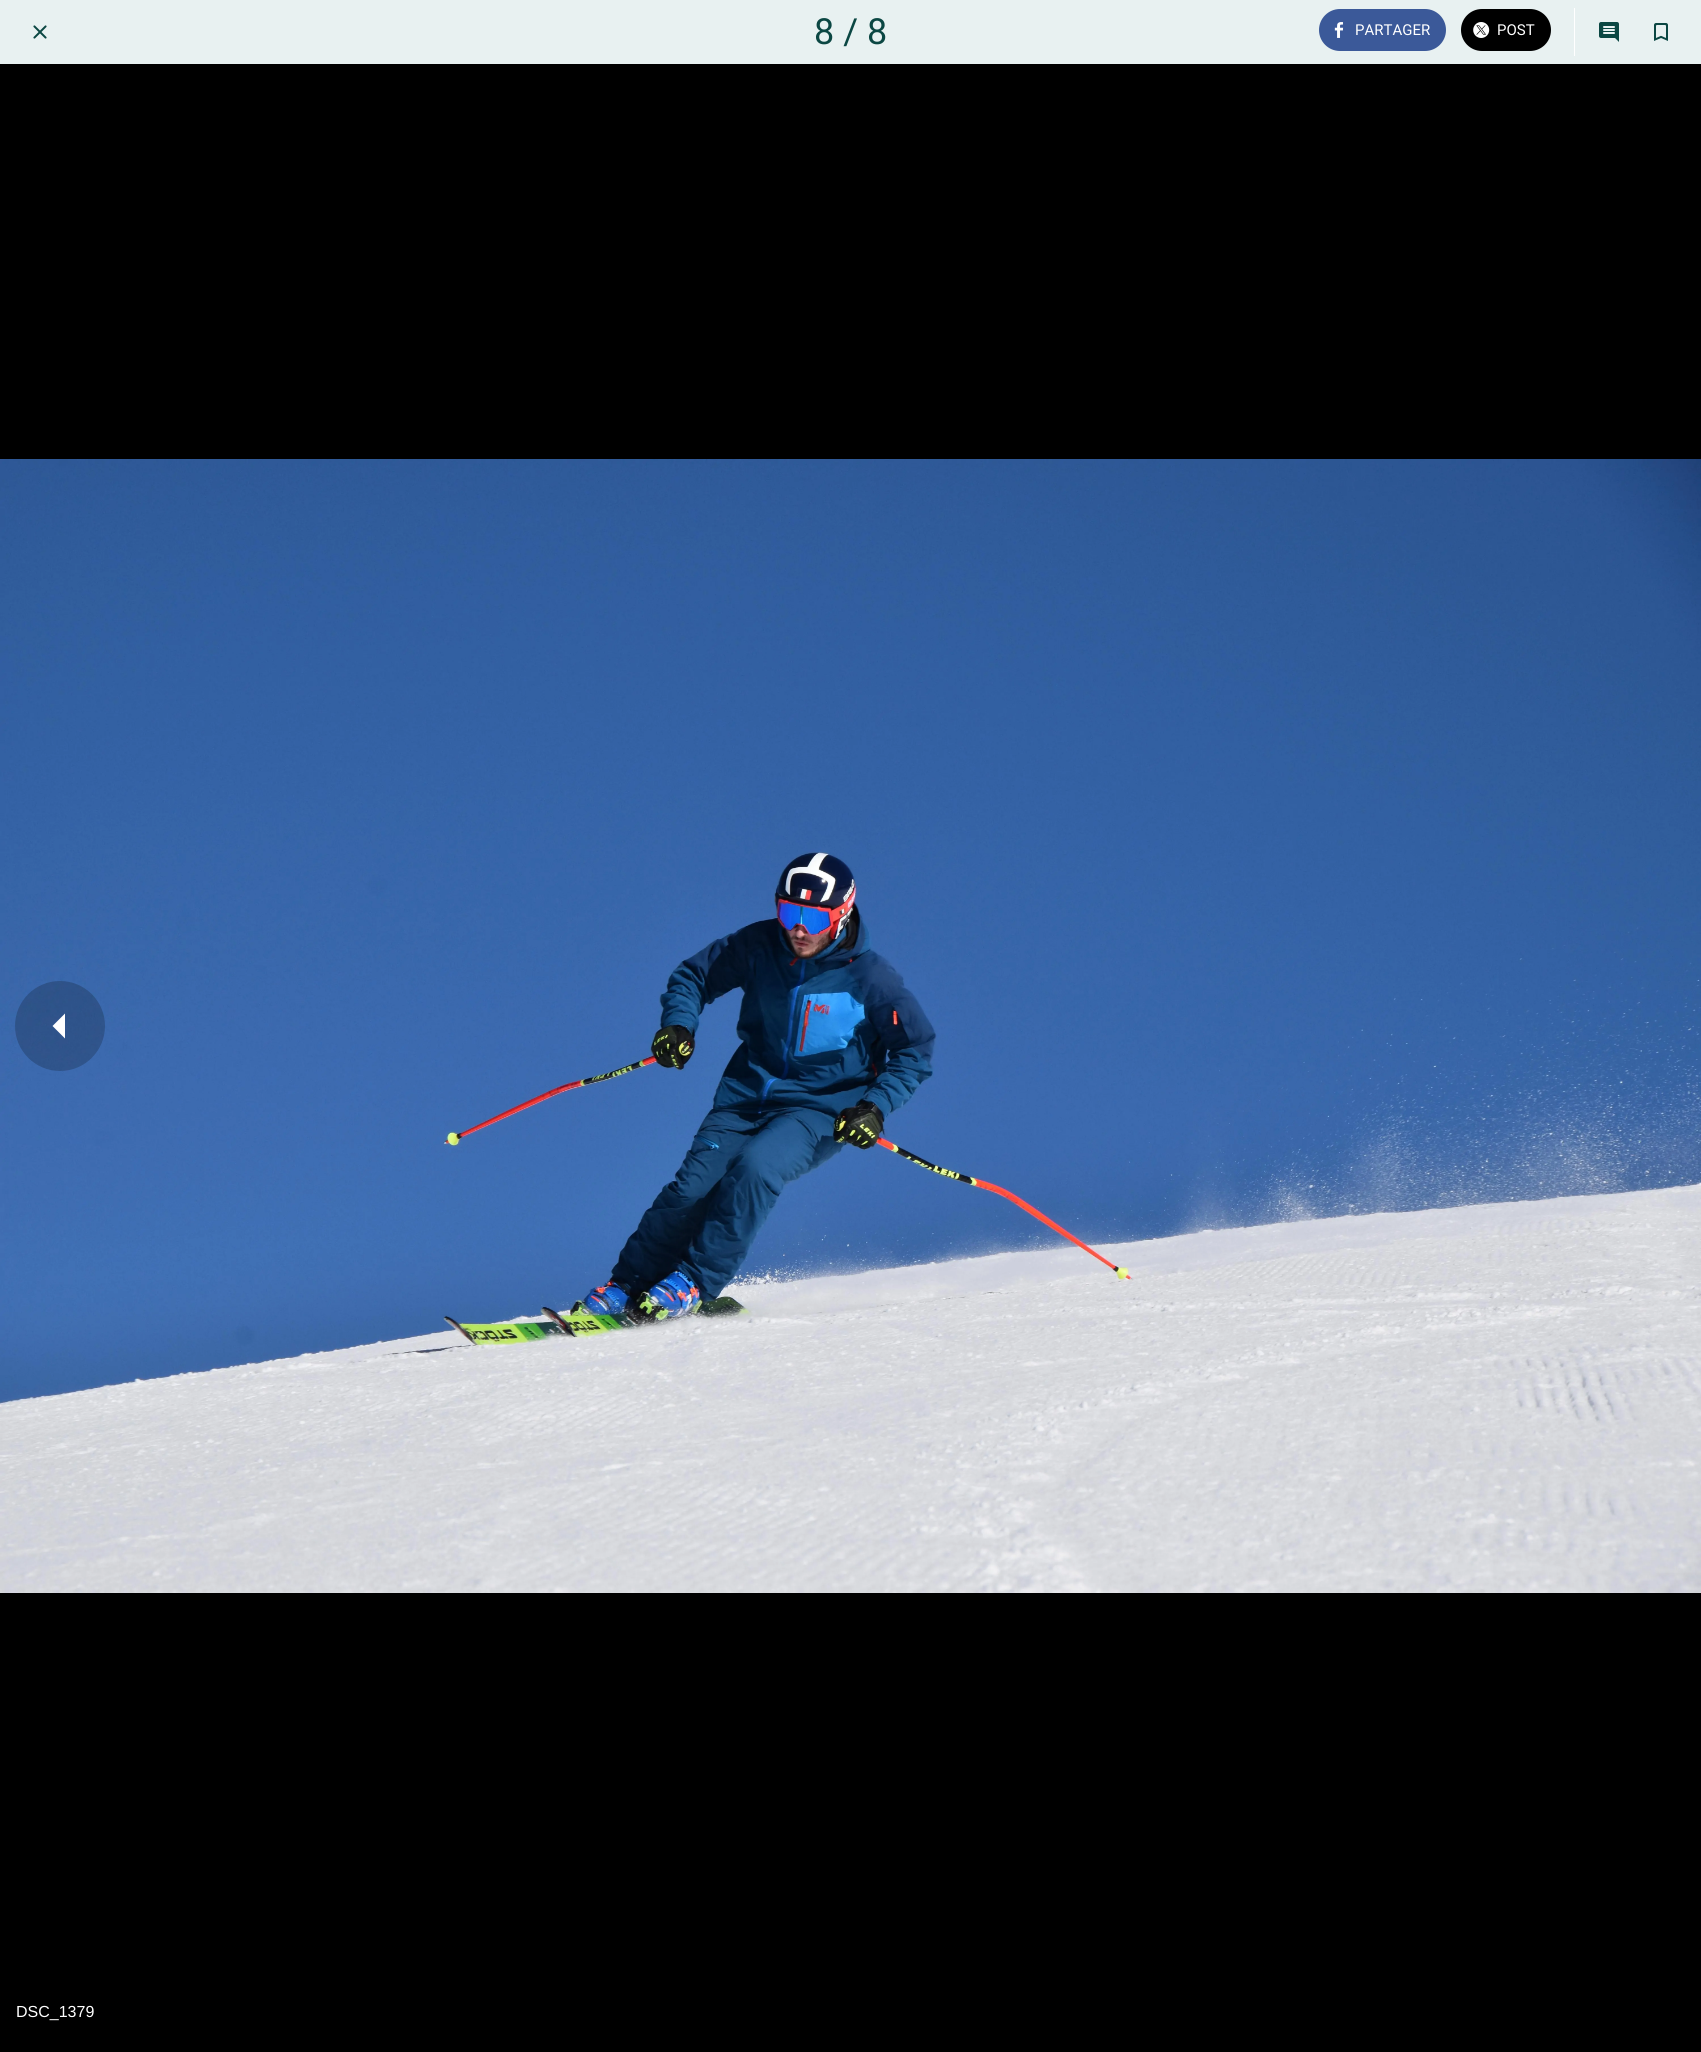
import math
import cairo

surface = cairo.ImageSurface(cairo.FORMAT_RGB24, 1701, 2052)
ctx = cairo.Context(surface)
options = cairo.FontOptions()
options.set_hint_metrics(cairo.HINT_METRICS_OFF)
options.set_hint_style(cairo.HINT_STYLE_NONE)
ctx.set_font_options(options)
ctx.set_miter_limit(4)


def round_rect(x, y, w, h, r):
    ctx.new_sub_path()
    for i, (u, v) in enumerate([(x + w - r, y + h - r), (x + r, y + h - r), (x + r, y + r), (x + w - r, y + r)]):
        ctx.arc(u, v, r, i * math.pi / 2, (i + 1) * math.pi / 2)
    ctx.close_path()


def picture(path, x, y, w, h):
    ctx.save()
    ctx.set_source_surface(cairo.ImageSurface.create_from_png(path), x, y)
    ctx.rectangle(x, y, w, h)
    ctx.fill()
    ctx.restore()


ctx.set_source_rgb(0, 0, 0)
ctx.paint()
ctx.set_source_rgb(0.91, 0.945, 0.945)
ctx.rectangle(0, 0, 1701, 64)
ctx.fill()
picture("img1.png", 33, 25, 14, 14)
ctx.select_font_face("Roboto")
ctx.set_font_size(36)
ctx.set_source_rgb(0.043, 0.278, 0.263)
ctx.move_to(814, 44)
ctx.show_text("8 / 8")
ctx.set_source_rgb(0.231, 0.349, 0.6)
round_rect(1319, 9, 127, 42, 21)
ctx.fill()
picture("img2.png", 1334, 22, 10, 16)
ctx.set_font_size(15)
ctx.set_source_rgb(1, 1, 1)
ctx.move_to(1355, 35)
ctx.show_text("PARTAGER")
ctx.rectangle(1574, 8, 1, 48)
ctx.fill()
ctx.set_source_rgb(0, 0, 0)
round_rect(1461, 9, 90, 42, 21)
ctx.fill()
picture("img3.png", 1473, 22, 17, 16)
ctx.set_source_rgb(1, 1, 1)
ctx.move_to(1497, 35)
ctx.show_text("POST")
picture("img4.png", 1599, 22, 20, 20)
picture("img5.png", 1654, 23, 14, 18)
picture("img6.png", 0, 459, 1701, 1134)
ctx.set_source_rgba(0, 0, 0, 0.2)
ctx.arc(60, 1026, 45, 0, 2 * math.pi)
ctx.fill()
ctx.set_source_rgb(1, 1, 1)
ctx.new_path()
ctx.move_to(65, 1013.5)
ctx.line_to(52.5, 1026)
ctx.line_to(65, 1038.5)
ctx.close_path()
ctx.fill()
ctx.select_font_face("Liberation Sans")
ctx.set_font_size(16)
ctx.move_to(16, 2017)
ctx.show_text("DSC_1379")
surface.write_to_png("page.png")
